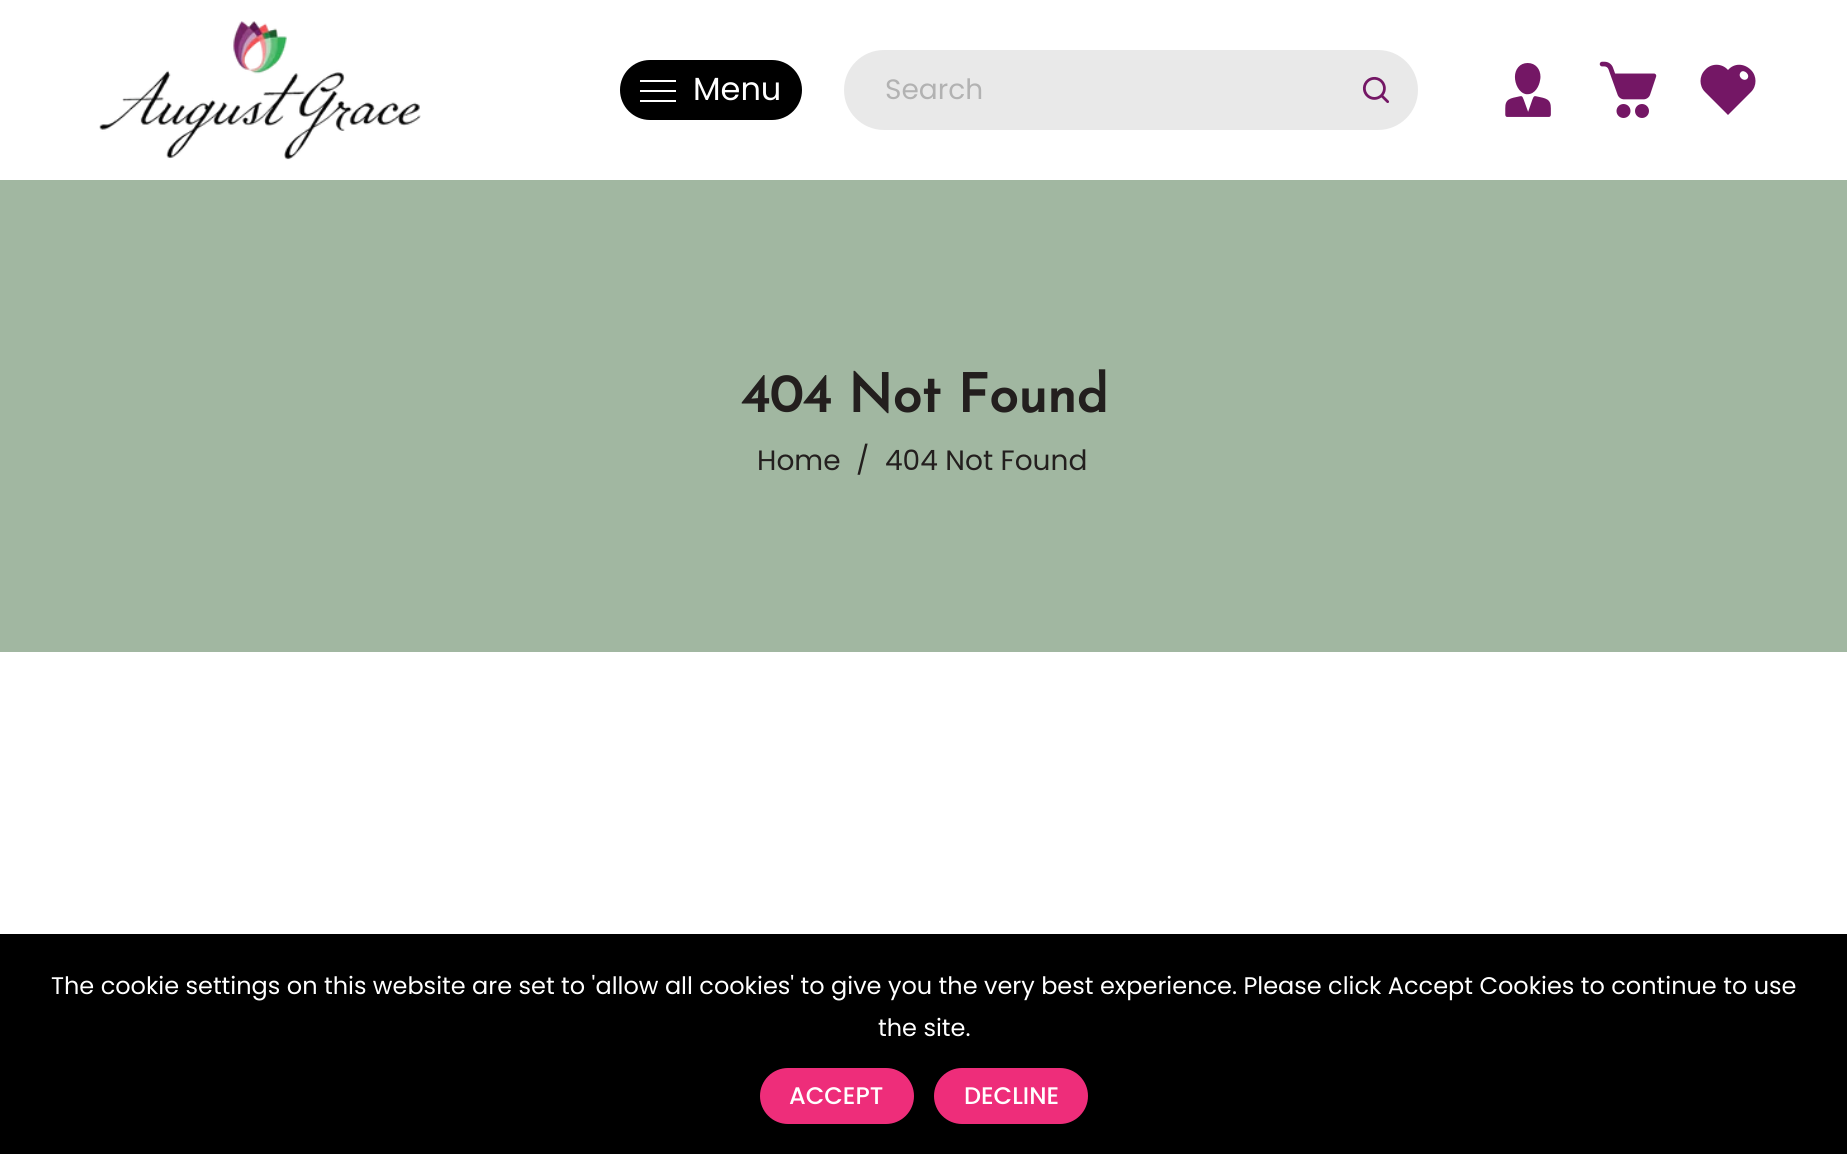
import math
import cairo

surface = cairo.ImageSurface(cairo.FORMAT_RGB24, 1847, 1154)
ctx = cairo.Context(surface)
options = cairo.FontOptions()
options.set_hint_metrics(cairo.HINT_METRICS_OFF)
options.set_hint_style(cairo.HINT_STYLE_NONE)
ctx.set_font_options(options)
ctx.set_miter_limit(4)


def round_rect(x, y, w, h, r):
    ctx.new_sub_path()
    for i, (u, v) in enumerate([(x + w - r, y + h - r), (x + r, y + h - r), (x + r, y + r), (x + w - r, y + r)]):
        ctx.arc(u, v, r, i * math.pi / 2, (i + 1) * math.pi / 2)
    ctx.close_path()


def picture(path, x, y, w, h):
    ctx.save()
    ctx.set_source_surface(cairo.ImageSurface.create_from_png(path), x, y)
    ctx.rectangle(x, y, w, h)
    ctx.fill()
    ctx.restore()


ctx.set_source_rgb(1, 1, 1)
ctx.paint()
picture("img1.png", 99, 21, 322, 139)
ctx.set_source_rgb(0, 0, 0)
round_rect(620, 60, 182, 60, 30)
ctx.fill()
ctx.set_source_rgb(1, 1, 1)
ctx.rectangle(640, 90, 36, 2)
ctx.fill()
ctx.rectangle(640, 80, 36, 2)
ctx.fill()
ctx.rectangle(640, 100, 36, 2)
ctx.fill()
ctx.select_font_face("Poppins")
ctx.set_font_size(32)
ctx.move_to(693, 100)
ctx.show_text("Menu")
ctx.set_source_rgb(0.914, 0.914, 0.914)
round_rect(844, 50, 574, 80, 40)
ctx.fill()
ctx.set_font_size(28)
ctx.set_source_rgb(0.698, 0.698, 0.698)
ctx.move_to(885, 99)
ctx.show_text("Search")
picture("img2.png", 1362, 76, 27, 27)
picture("img3.png", 1505, 63, 46, 54)
picture("img4.png", 1599, 61, 58, 57)
ctx.set_source_rgb(0.455, 0.09, 0.396)
ctx.new_path()
ctx.move_to(1751, 70)
ctx.curve_to(1744, 63, 1734, 63, 1728, 70)
ctx.curve_to(1722, 63, 1711, 63, 1705, 70)
ctx.curve_to(1699, 76, 1699, 86, 1705, 92)
ctx.line_to(1728, 115)
ctx.line_to(1751, 92)
ctx.curve_to(1757, 86, 1757, 76, 1751, 70)
ctx.close_path()
ctx.move_to(1747, 79)
ctx.curve_to(1743, 82, 1737, 76, 1741, 72)
ctx.curve_to(1744, 69, 1751, 75, 1747, 79)
ctx.close_path()
ctx.fill()
ctx.set_source_rgb(0.631, 0.718, 0.631)
ctx.rectangle(0, 180, 1847, 472)
ctx.fill()
ctx.select_font_face("Josefin Sans", cairo.FONT_SLANT_NORMAL, cairo.FONT_WEIGHT_BOLD)
ctx.set_font_size(53.25)
ctx.set_source_rgb(0.137, 0.122, 0.118)
ctx.move_to(741, 412)
ctx.show_text("404 Not Found")
ctx.select_font_face("Poppins")
ctx.set_font_size(28)
ctx.move_to(757, 470)
ctx.show_text("Home")
ctx.move_to(856, 470)
ctx.show_text("/")
ctx.move_to(885, 470)
ctx.show_text("404 Not Found")
ctx.set_source_rgb(0, 0, 0)
ctx.rectangle(0, 934, 1847, 220)
ctx.fill()
ctx.set_font_size(24)
ctx.set_source_rgb(1, 1, 1)
ctx.move_to(51, 994)
ctx.show_text("The cookie settings on this website are set to 'allow all cookies' to give you the very best experience. Please click Accept Cookies to continue to use")
ctx.move_to(878, 1036)
ctx.show_text("the site.")
ctx.set_source_rgb(0.933, 0.176, 0.478)
round_rect(760, 1068, 154, 56, 28)
ctx.fill()
ctx.select_font_face("Poppins Medium")
ctx.set_source_rgb(1, 1, 1)
ctx.move_to(789, 1104)
ctx.show_text("ACCEPT")
ctx.set_source_rgb(0.933, 0.176, 0.478)
round_rect(934, 1068, 154, 56, 28)
ctx.fill()
ctx.set_source_rgb(1, 1, 1)
ctx.move_to(964, 1104)
ctx.show_text("DECLINE")
surface.write_to_png("page.png")
